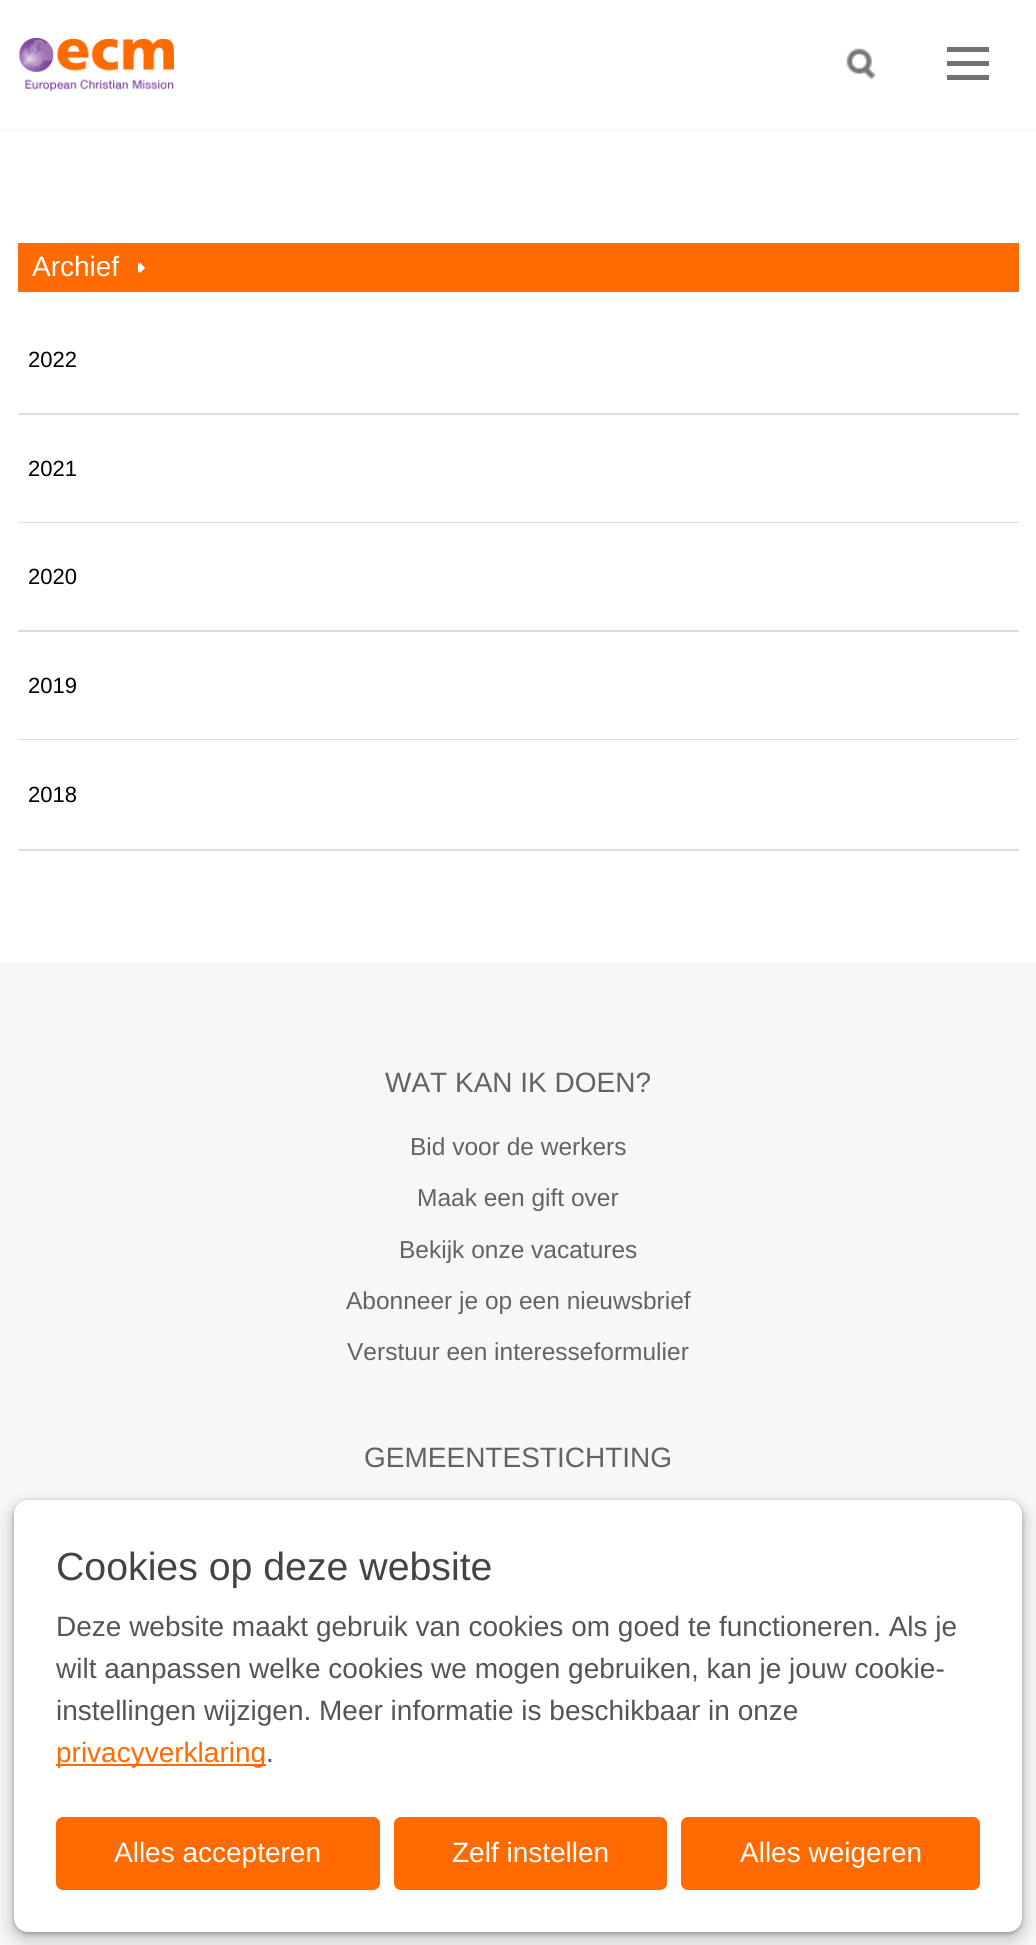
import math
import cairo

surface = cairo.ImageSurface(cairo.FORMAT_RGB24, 1036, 1945)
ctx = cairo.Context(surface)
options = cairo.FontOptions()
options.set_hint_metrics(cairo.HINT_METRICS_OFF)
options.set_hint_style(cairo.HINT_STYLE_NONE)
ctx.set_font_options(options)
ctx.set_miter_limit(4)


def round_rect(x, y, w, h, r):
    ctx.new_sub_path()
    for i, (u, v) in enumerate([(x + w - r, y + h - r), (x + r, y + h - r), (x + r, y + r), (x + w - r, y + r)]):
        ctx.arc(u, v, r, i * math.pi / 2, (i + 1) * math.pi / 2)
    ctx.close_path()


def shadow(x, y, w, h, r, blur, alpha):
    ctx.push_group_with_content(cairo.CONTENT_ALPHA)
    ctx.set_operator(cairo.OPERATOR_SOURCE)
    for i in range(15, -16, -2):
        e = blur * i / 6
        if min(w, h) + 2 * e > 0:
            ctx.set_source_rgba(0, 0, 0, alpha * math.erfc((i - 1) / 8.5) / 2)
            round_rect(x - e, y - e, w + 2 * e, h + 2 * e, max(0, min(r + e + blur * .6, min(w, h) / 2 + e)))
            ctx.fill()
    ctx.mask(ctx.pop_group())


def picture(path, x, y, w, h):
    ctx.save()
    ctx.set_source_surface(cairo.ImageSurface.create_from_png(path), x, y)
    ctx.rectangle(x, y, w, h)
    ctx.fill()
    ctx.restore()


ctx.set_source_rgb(0.965, 0.965, 0.965)
ctx.paint()
ctx.set_source_rgb(1, 1, 1)
ctx.rectangle(0, 0, 1036, 130)
ctx.fill()
picture("img1.png", 18, 37, 156, 55)
picture("img2.png", 846, 48, 30, 32)
ctx.set_source_rgb(0.447, 0.447, 0.447)
ctx.rectangle(947, 47, 42, 5)
ctx.fill()
ctx.rectangle(947, 61, 42, 5)
ctx.fill()
ctx.rectangle(947, 75, 42, 5)
ctx.fill()
ctx.set_source_rgb(1, 1, 1)
ctx.rectangle(0, 131, 1036, 832)
ctx.fill()
ctx.set_source_rgb(1, 0.42, 0)
ctx.rectangle(18, 243, 1001, 49)
ctx.fill()
ctx.select_font_face("Liberation Sans")
ctx.set_font_size(28)
ctx.set_source_rgb(1, 1, 1)
ctx.move_to(32, 276)
ctx.show_text("Archief")
ctx.new_path()
ctx.move_to(140, 273)
ctx.line_to(140, 262.5)
ctx.line_to(145, 268)
ctx.close_path()
ctx.fill()
ctx.new_path()
ctx.move_to(138, 273)
ctx.line_to(138, 262.5)
ctx.line_to(143.5, 268)
ctx.close_path()
ctx.fill()
ctx.set_source_rgb(0.867, 0.867, 0.867)
ctx.rectangle(18, 413, 1001, 2)
ctx.fill()
ctx.set_font_size(22)
ctx.set_source_rgb(0, 0, 0)
ctx.move_to(28, 367)
ctx.show_text("2022")
ctx.set_source_rgb(0.867, 0.867, 0.867)
ctx.rectangle(18, 522, 1001, 1)
ctx.fill()
ctx.set_source_rgb(0, 0, 0)
ctx.move_to(28, 476)
ctx.show_text("2021")
ctx.set_source_rgb(0.867, 0.867, 0.867)
ctx.rectangle(18, 630, 1001, 2)
ctx.fill()
ctx.set_source_rgb(0, 0, 0)
ctx.move_to(28, 584)
ctx.show_text("2020")
ctx.set_source_rgb(0.867, 0.867, 0.867)
ctx.rectangle(18, 739, 1001, 1)
ctx.fill()
ctx.set_source_rgb(0, 0, 0)
ctx.move_to(28, 693)
ctx.show_text("2019")
ctx.set_source_rgb(0.867, 0.867, 0.867)
ctx.rectangle(18, 849, 1001, 2)
ctx.fill()
ctx.set_source_rgb(0, 0, 0)
ctx.move_to(28, 802)
ctx.show_text("2018")
ctx.set_font_size(28)
ctx.set_source_rgb(0.388, 0.388, 0.388)
ctx.move_to(385, 1092)
ctx.show_text("WAT KAN IK DOEN?")
ctx.set_font_size(24.5)
ctx.move_to(410, 1155)
ctx.show_text("Bid voor de werkers")
ctx.move_to(417, 1206)
ctx.show_text("Maak een gift over")
ctx.move_to(399, 1258)
ctx.show_text("Bekijk onze vacatures")
ctx.move_to(346, 1309)
ctx.show_text("Abonneer je op een nieuwsbrief")
ctx.move_to(347, 1360)
ctx.show_text("Verstuur een interesseformulier")
ctx.set_font_size(28)
ctx.move_to(364, 1467)
ctx.show_text("GEMEENTESTICHTING")
ctx.set_source_rgb(0, 0, 0)
shadow(14, 1502, 1008, 432, 14, 2.5, 0.3)
shadow(9, 1502, 1018, 442, 19, 7, 0.15)
ctx.set_source_rgb(1, 1, 1)
round_rect(14, 1500, 1008, 432, 14)
ctx.fill()
ctx.set_font_size(39.25)
ctx.set_source_rgb(0.267, 0.267, 0.267)
ctx.move_to(56, 1580)
ctx.show_text("Cookies op deze website")
ctx.set_font_size(28)
ctx.set_source_rgb(0.333, 0.333, 0.333)
ctx.move_to(56, 1636)
ctx.show_text("Deze website maakt gebruik van cookies om goed te functioneren. Als je")
ctx.move_to(56, 1678)
ctx.show_text("wilt aanpassen welke cookies we mogen gebruiken, kan je jouw cookie-")
ctx.move_to(56, 1720)
ctx.show_text("instellingen wijzigen. Meer informatie is beschikbaar in onze")
ctx.set_source_rgb(1, 0.42, 0)
ctx.rectangle(56, 1764, 210, 2)
ctx.fill()
ctx.move_to(56, 1762)
ctx.show_text("privacyverklaring")
ctx.set_source_rgb(0.333, 0.333, 0.333)
ctx.move_to(266, 1762)
ctx.show_text(".")
ctx.set_source_rgb(1, 0.42, 0)
round_rect(56, 1817, 324, 73, 7)
ctx.fill()
ctx.set_source_rgb(1, 1, 1)
ctx.move_to(114, 1862)
ctx.show_text("Alles accepteren")
ctx.set_source_rgb(1, 0.42, 0)
round_rect(394, 1817, 273, 73, 7)
ctx.fill()
ctx.set_source_rgb(1, 1, 1)
ctx.move_to(452, 1862)
ctx.show_text("Zelf instellen")
ctx.set_source_rgb(1, 0.42, 0)
round_rect(681, 1817, 299, 73, 7)
ctx.fill()
ctx.set_source_rgb(1, 1, 1)
ctx.move_to(740, 1862)
ctx.show_text("Alles weigeren")
surface.write_to_png("page.png")
